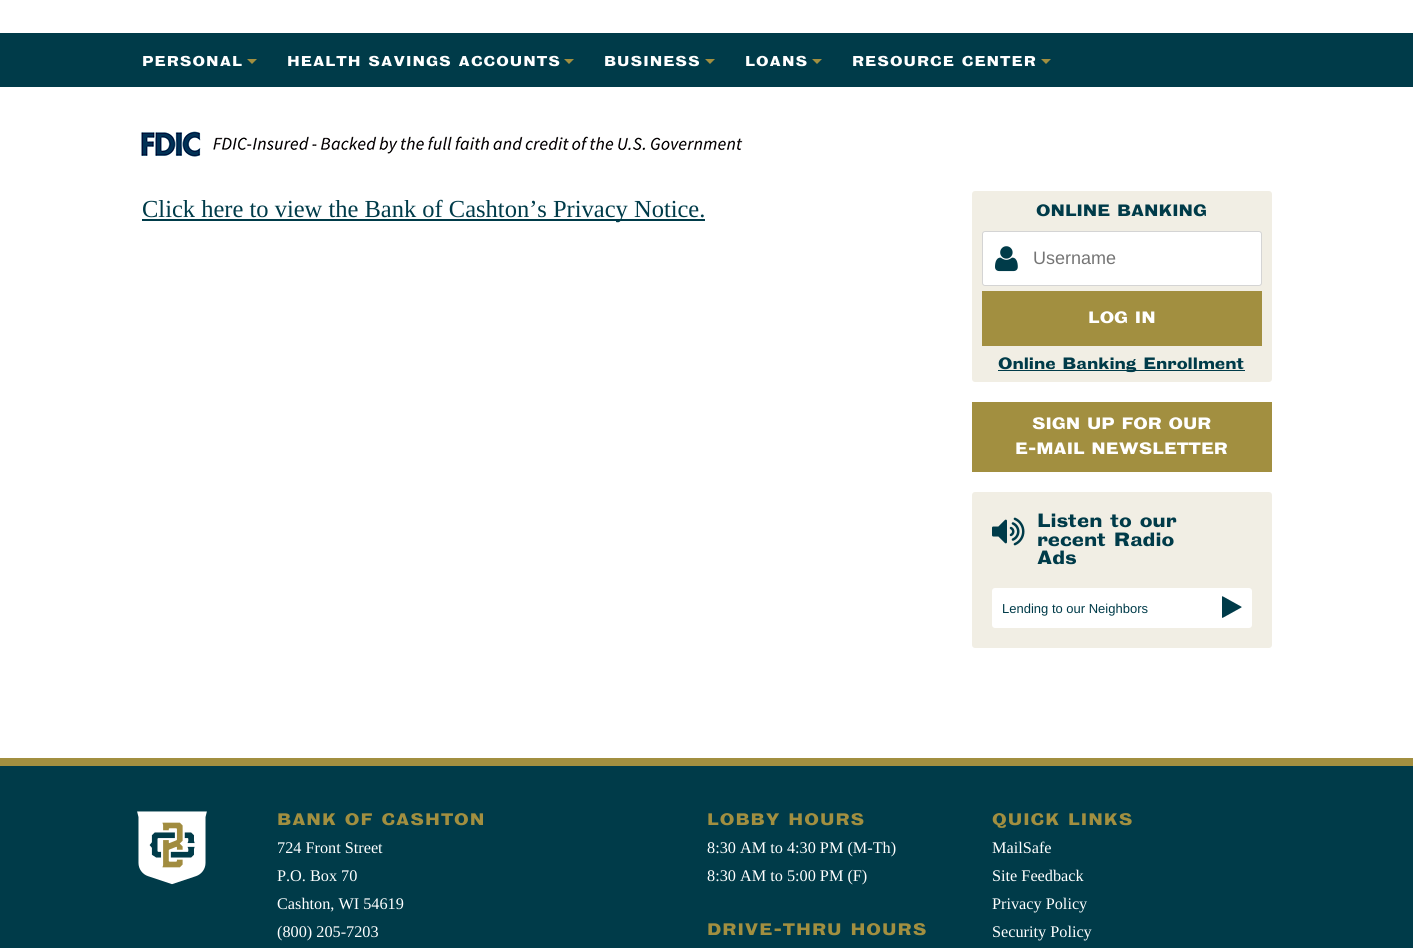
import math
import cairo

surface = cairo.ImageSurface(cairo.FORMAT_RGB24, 1413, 948)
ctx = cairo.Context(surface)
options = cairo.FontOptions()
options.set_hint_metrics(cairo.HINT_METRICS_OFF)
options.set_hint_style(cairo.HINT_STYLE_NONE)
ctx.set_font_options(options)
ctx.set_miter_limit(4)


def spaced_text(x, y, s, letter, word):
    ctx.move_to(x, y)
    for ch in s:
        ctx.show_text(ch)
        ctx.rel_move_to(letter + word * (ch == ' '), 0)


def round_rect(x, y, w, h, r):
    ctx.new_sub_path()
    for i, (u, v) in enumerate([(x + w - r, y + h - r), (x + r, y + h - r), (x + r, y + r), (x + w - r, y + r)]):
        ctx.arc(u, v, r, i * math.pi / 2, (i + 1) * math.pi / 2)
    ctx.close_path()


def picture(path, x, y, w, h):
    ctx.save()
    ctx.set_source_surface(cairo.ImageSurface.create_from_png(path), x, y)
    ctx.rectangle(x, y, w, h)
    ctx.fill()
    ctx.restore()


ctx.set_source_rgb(0, 0.231, 0.286)
ctx.paint()
ctx.set_source_rgb(1, 1, 1)
ctx.rectangle(0, 0, 1413, 758)
ctx.fill()
ctx.set_source_rgb(0, 0.231, 0.286)
ctx.rectangle(0, 33, 1413, 54)
ctx.fill()
ctx.select_font_face("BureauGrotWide", cairo.FONT_SLANT_NORMAL, cairo.FONT_WEIGHT_BOLD)
ctx.set_font_size(13)
ctx.set_source_rgb(1, 1, 1)
spaced_text(142, 66, "PERSONAL", 1, 0)
ctx.set_source_rgb(0.635, 0.561, 0.251)
ctx.new_path()
ctx.move_to(247, 59)
ctx.line_to(257, 59)
ctx.line_to(252, 64)
ctx.close_path()
ctx.fill()
ctx.set_source_rgb(1, 1, 1)
spaced_text(287, 66, "HEALTH SAVINGS ACCOUNTS", 1, 0)
ctx.set_source_rgb(0.635, 0.561, 0.251)
ctx.new_path()
ctx.move_to(564, 59)
ctx.line_to(574, 59)
ctx.line_to(569, 64)
ctx.close_path()
ctx.fill()
ctx.set_source_rgb(1, 1, 1)
spaced_text(604, 66, "BUSINESS", 1, 0)
ctx.set_source_rgb(0.635, 0.561, 0.251)
ctx.new_path()
ctx.move_to(705, 59)
ctx.line_to(715, 59)
ctx.line_to(710, 64)
ctx.close_path()
ctx.fill()
ctx.set_source_rgb(1, 1, 1)
spaced_text(745, 66, "LOANS", 1, 0)
ctx.set_source_rgb(0.635, 0.561, 0.251)
ctx.new_path()
ctx.move_to(812, 59)
ctx.line_to(822, 59)
ctx.line_to(817, 64)
ctx.close_path()
ctx.fill()
ctx.set_source_rgb(1, 1, 1)
spaced_text(852, 66, "RESOURCE CENTER", 1, 0)
ctx.set_source_rgb(0.635, 0.561, 0.251)
ctx.new_path()
ctx.move_to(1041, 59)
ctx.line_to(1051, 59)
ctx.line_to(1046, 64)
ctx.close_path()
ctx.fill()
picture("img1.png", 141, 131, 602, 26)
ctx.set_source_rgb(0, 0.231, 0.286)
ctx.rectangle(142, 219, 563, 2)
ctx.fill()
ctx.select_font_face("Liberation Serif")
ctx.set_font_size(24.5)
ctx.move_to(142, 217)
ctx.show_text("Click here to view the Bank of Cashton’s Privacy Notice.")
ctx.set_source_rgb(0.945, 0.933, 0.894)
round_rect(972, 191, 300, 191, 3)
ctx.fill()
ctx.select_font_face("BureauGrotWide", cairo.FONT_SLANT_NORMAL, cairo.FONT_WEIGHT_BOLD)
ctx.set_font_size(15)
ctx.set_source_rgb(0, 0.231, 0.286)
ctx.move_to(1036, 216)
ctx.show_text("ONLINE BANKING")
ctx.set_source_rgb(1, 1, 1)
round_rect(982.5, 231.5, 279, 54, 2.5)
ctx.fill_preserve()
ctx.set_source_rgb(0.831, 0.831, 0.831)
ctx.set_line_width(1)
ctx.stroke()
picture("img2.png", 995, 246, 23, 26)
ctx.select_font_face("Liberation Sans")
ctx.set_font_size(18)
ctx.set_source_rgb(0.459, 0.459, 0.459)
ctx.move_to(1033, 264)
ctx.show_text("Username")
ctx.set_source_rgb(0.635, 0.561, 0.251)
ctx.rectangle(982, 291, 280, 55)
ctx.fill()
ctx.select_font_face("BureauGrotWide", cairo.FONT_SLANT_NORMAL, cairo.FONT_WEIGHT_BOLD)
ctx.set_font_size(15)
ctx.set_source_rgb(1, 1, 1)
ctx.move_to(1088, 323)
ctx.show_text("LOG IN")
ctx.set_source_rgb(0, 0.231, 0.286)
ctx.rectangle(998, 370, 247, 1)
ctx.fill()
ctx.move_to(998, 369)
ctx.show_text("Online Banking Enrollment")
ctx.set_source_rgb(0.635, 0.561, 0.251)
ctx.rectangle(972, 402, 300, 70)
ctx.fill()
ctx.set_source_rgb(1, 1, 1)
ctx.move_to(1032, 429)
ctx.show_text("SIGN UP FOR OUR")
ctx.move_to(1015, 454)
ctx.show_text("E-MAIL NEWSLETTER")
ctx.set_source_rgb(0.945, 0.933, 0.894)
round_rect(972, 492, 300, 156, 3)
ctx.fill()
picture("img3.png", 992, 517, 33, 29)
ctx.set_font_size(17.5)
ctx.set_source_rgb(0, 0.231, 0.286)
ctx.move_to(1037, 527)
ctx.show_text("Listen to our")
ctx.move_to(1037, 546)
ctx.show_text("recent Radio")
ctx.move_to(1037, 564)
ctx.show_text("Ads")
ctx.set_source_rgb(1, 1, 1)
round_rect(992, 588, 260, 40, 3)
ctx.fill()
ctx.select_font_face("Liberation Sans")
ctx.set_font_size(13)
ctx.set_source_rgb(0, 0.231, 0.286)
ctx.move_to(1002, 613)
ctx.show_text("Lending to our Neighbors")
picture("img4.png", 1222, 596, 20, 22)
ctx.set_source_rgb(0.635, 0.561, 0.251)
ctx.rectangle(0, 758, 1413, 8)
ctx.fill()
picture("img5.png", 137, 811, 70, 74)
ctx.select_font_face("BureauGrotWide", cairo.FONT_SLANT_NORMAL, cairo.FONT_WEIGHT_BOLD)
ctx.set_font_size(15.2)
spaced_text(277, 825, "BANK OF CASHTON", 1, 0)
ctx.select_font_face("Liberation Serif")
ctx.set_font_size(16.25)
ctx.set_source_rgb(1, 1, 1)
ctx.move_to(277, 853)
ctx.show_text("724 Front Street")
ctx.move_to(277, 881)
ctx.show_text("P.O. Box 70")
ctx.move_to(277, 909)
ctx.show_text("Cashton, WI 54619")
ctx.move_to(277, 937)
ctx.show_text("(800) 205-7203")
ctx.select_font_face("BureauGrotWide", cairo.FONT_SLANT_NORMAL, cairo.FONT_WEIGHT_BOLD)
ctx.set_font_size(15.2)
ctx.set_source_rgb(0.635, 0.561, 0.251)
spaced_text(707, 825, "LOBBY HOURS", 1, 0)
ctx.select_font_face("Liberation Serif")
ctx.set_font_size(16.25)
ctx.set_source_rgb(1, 1, 1)
ctx.move_to(707, 853)
ctx.show_text("8:30 AM to 4:30 PM (M-Th)")
ctx.move_to(707, 881)
ctx.show_text("8:30 AM to 5:00 PM (F)")
ctx.select_font_face("BureauGrotWide", cairo.FONT_SLANT_NORMAL, cairo.FONT_WEIGHT_BOLD)
ctx.set_font_size(15.2)
ctx.set_source_rgb(0.635, 0.561, 0.251)
spaced_text(707, 935, "DRIVE-THRU HOURS", 1, 0)
spaced_text(992, 825, "QUICK LINKS", 1, 0)
ctx.select_font_face("Liberation Serif")
ctx.set_font_size(16.25)
ctx.set_source_rgb(1, 1, 1)
ctx.move_to(992, 853)
ctx.show_text("MailSafe")
ctx.move_to(992, 881)
ctx.show_text("Site Feedback")
ctx.move_to(992, 909)
ctx.show_text("Privacy Policy")
ctx.move_to(992, 937)
ctx.show_text("Security Policy")
surface.write_to_png("page.png")
